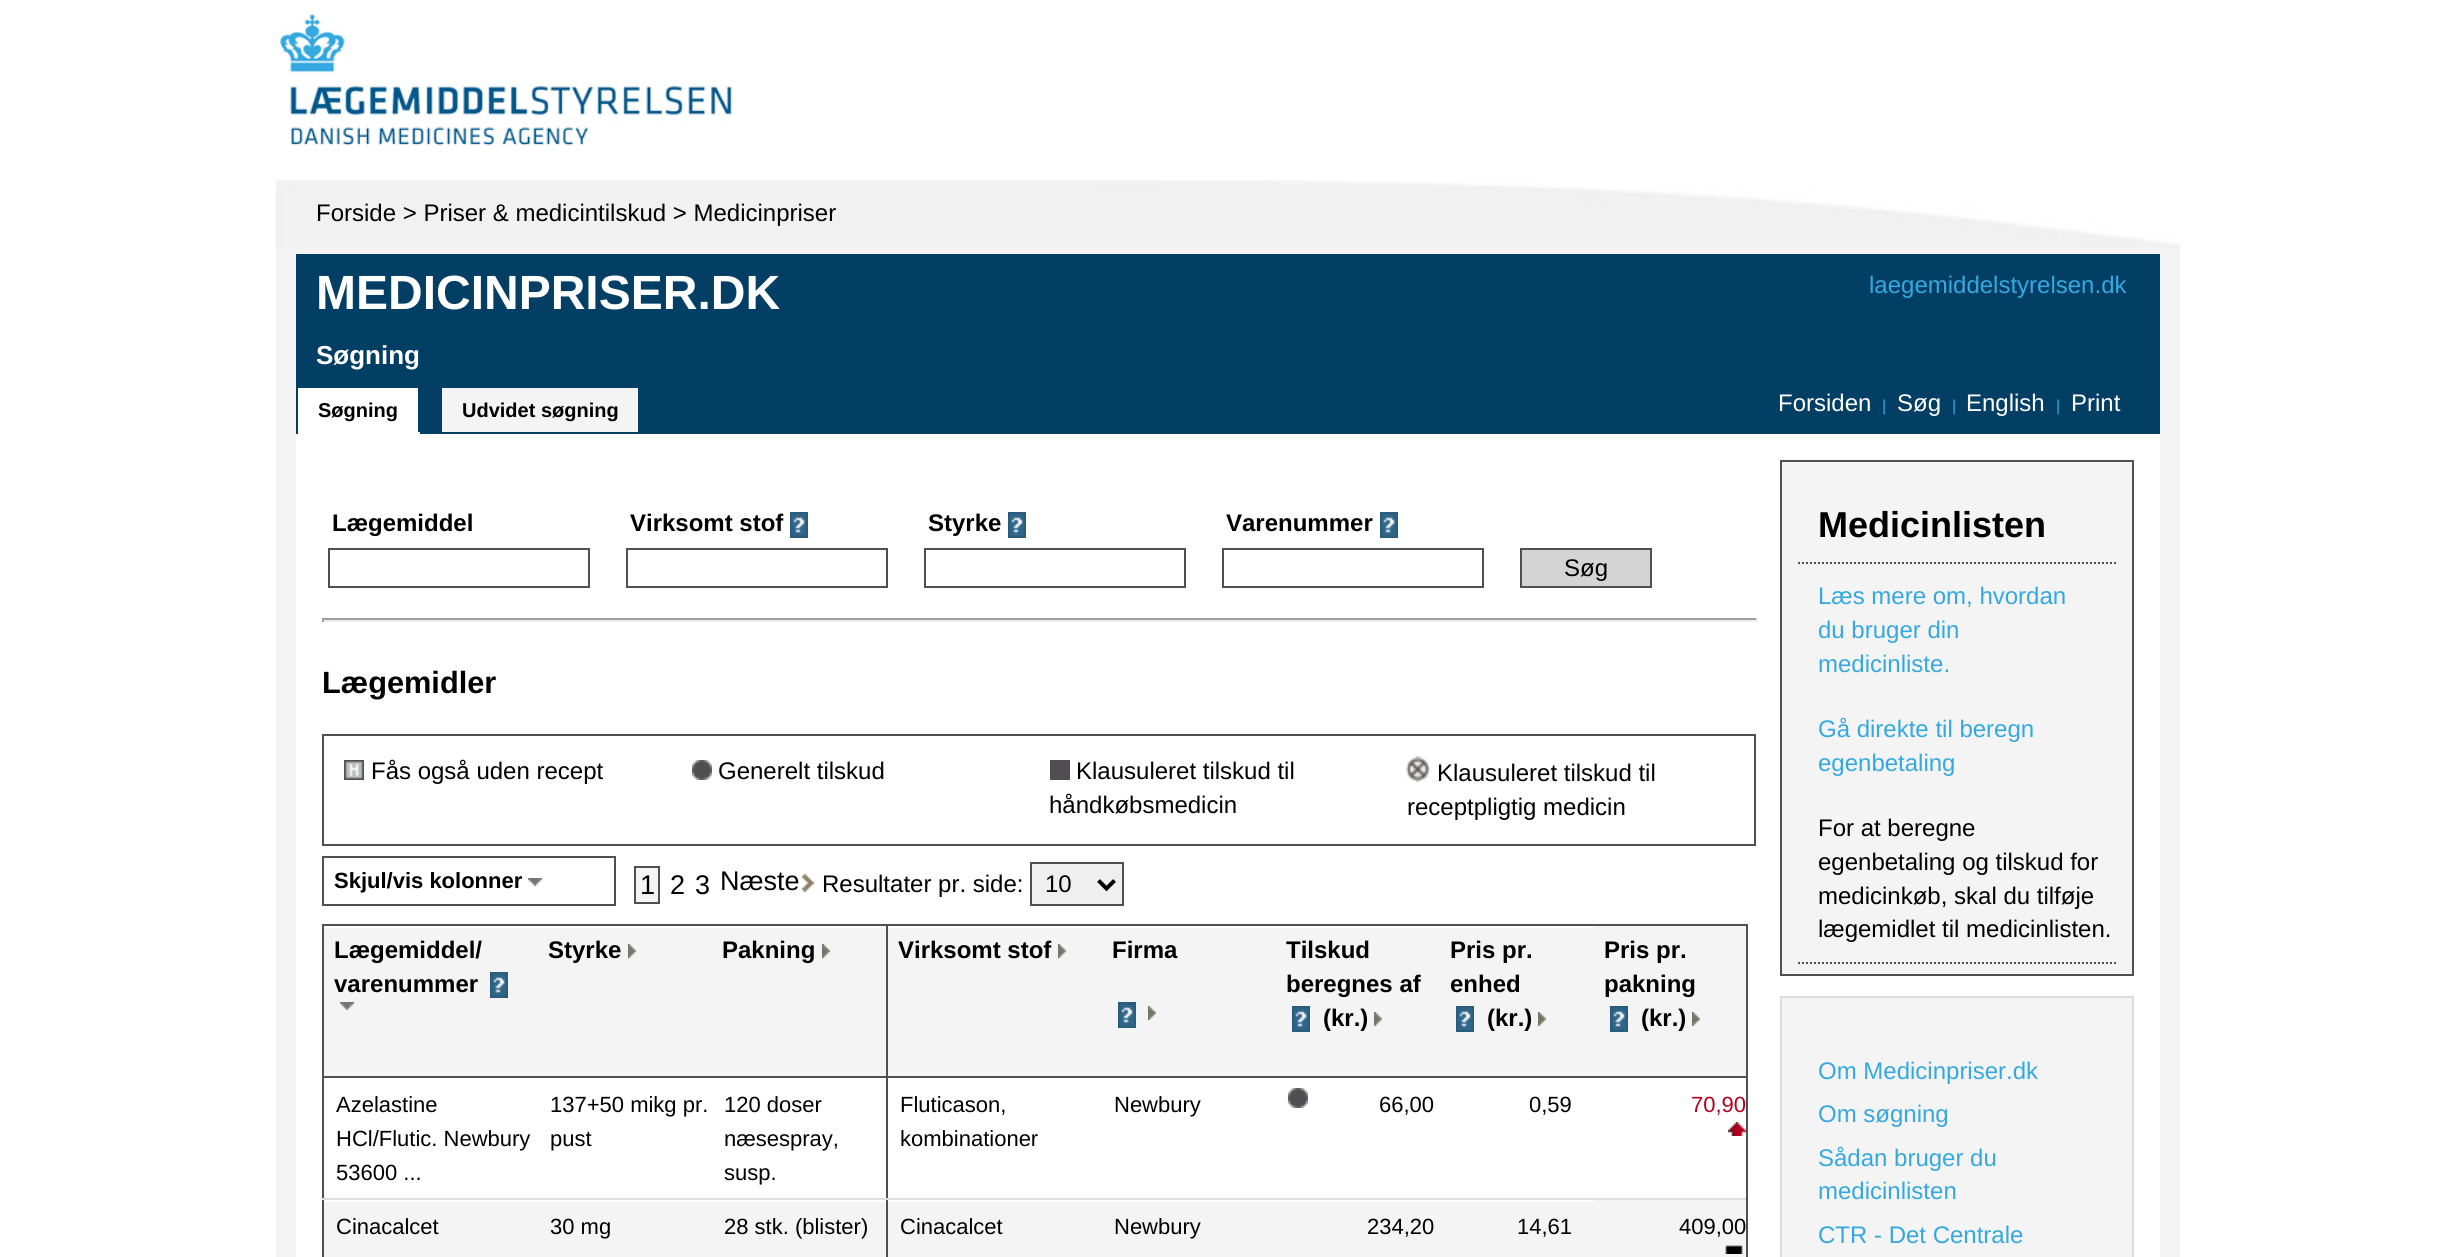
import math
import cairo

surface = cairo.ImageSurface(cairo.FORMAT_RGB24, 2456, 1257)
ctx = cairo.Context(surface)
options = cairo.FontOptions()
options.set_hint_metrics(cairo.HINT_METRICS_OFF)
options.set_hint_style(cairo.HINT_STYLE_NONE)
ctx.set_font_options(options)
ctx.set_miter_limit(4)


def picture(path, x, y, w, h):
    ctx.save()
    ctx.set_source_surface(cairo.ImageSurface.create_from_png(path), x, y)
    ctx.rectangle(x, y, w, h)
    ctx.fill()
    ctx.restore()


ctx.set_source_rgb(1, 1, 1)
ctx.paint()
picture("img1.png", 279, 14, 453, 137)
ctx.set_source_rgb(0.957, 0.957, 0.957)
ctx.rectangle(276, 248, 1904, 1009)
ctx.fill()
picture("img2.png", 276, 180, 1904, 68)
ctx.select_font_face("Liberation Sans")
ctx.set_font_size(24)
ctx.set_source_rgb(0, 0, 0)
ctx.move_to(316, 221)
ctx.show_text("Forside > Priser & medicintilskud > Medicinpriser")
ctx.set_source_rgb(0.012, 0.247, 0.396)
ctx.rectangle(296, 254, 1864, 180)
ctx.fill()
ctx.select_font_face("Liberation Sans", cairo.FONT_SLANT_NORMAL, cairo.FONT_WEIGHT_BOLD)
ctx.set_font_size(48)
ctx.set_source_rgb(1, 1, 1)
ctx.move_to(316, 309)
ctx.show_text("MEDICINPRISER.DK")
ctx.select_font_face("Liberation Sans")
ctx.set_font_size(24)
ctx.set_source_rgb(0.208, 0.659, 0.878)
ctx.move_to(1869, 293)
ctx.show_text("laegemiddelstyrelsen.dk")
ctx.select_font_face("Liberation Sans", cairo.FONT_SLANT_NORMAL, cairo.FONT_WEIGHT_BOLD)
ctx.set_font_size(26)
ctx.set_source_rgb(1, 1, 1)
ctx.move_to(316, 364)
ctx.show_text("Søgning")
ctx.rectangle(298, 388, 120, 44)
ctx.fill()
ctx.rectangle(296, 432, 124, 2)
ctx.fill()
ctx.set_source_rgb(0.012, 0.247, 0.396)
ctx.rectangle(296, 432, 2, 2)
ctx.fill()
ctx.set_font_size(20)
ctx.set_source_rgb(0, 0, 0)
ctx.move_to(318, 417)
ctx.show_text("Søgning")
ctx.set_source_rgb(0.957, 0.957, 0.957)
ctx.rectangle(442, 388, 196, 44)
ctx.fill()
ctx.set_source_rgb(0, 0, 0)
ctx.move_to(462, 417)
ctx.show_text("Udvidet søgning")
ctx.select_font_face("Liberation Sans")
ctx.set_font_size(24)
ctx.set_source_rgb(1, 1, 1)
ctx.move_to(1778, 411)
ctx.show_text("Forsiden")
ctx.set_font_size(16)
ctx.set_source_rgb(0.208, 0.659, 0.878)
ctx.move_to(1882, 411)
ctx.show_text("|")
ctx.set_font_size(24)
ctx.set_source_rgb(1, 1, 1)
ctx.move_to(1897, 411)
ctx.show_text("Søg")
ctx.set_font_size(16)
ctx.set_source_rgb(0.208, 0.659, 0.878)
ctx.move_to(1952, 411)
ctx.show_text("|")
ctx.set_font_size(24)
ctx.set_source_rgb(1, 1, 1)
ctx.move_to(1966, 411)
ctx.show_text("English")
ctx.set_font_size(16)
ctx.set_source_rgb(0.208, 0.659, 0.878)
ctx.move_to(2056, 411)
ctx.show_text("|")
ctx.set_font_size(24)
ctx.set_source_rgb(1, 1, 1)
ctx.move_to(2071, 411)
ctx.show_text("Print")
ctx.rectangle(296, 434, 1864, 823)
ctx.fill()
ctx.select_font_face("Liberation Sans", cairo.FONT_SLANT_NORMAL, cairo.FONT_WEIGHT_BOLD)
ctx.set_source_rgb(0, 0, 0)
ctx.move_to(332, 531)
ctx.show_text("Lægemiddel")
ctx.move_to(630, 531)
ctx.show_text("Virksomt stof")
picture("img3.png", 790, 512, 18, 26)
ctx.move_to(928, 531)
ctx.show_text("Styrke")
picture("img3.png", 1008, 512, 18, 26)
ctx.move_to(1226, 531)
ctx.show_text("Varenummer")
picture("img3.png", 1380, 512, 18, 26)
ctx.rectangle(329, 549, 260, 38)
ctx.set_source_rgb(0.314, 0.314, 0.314)
ctx.stroke()
ctx.rectangle(627, 549, 260, 38)
ctx.stroke()
ctx.rectangle(925, 549, 260, 38)
ctx.stroke()
ctx.rectangle(1223, 549, 260, 38)
ctx.stroke()
ctx.set_source_rgb(0.831, 0.831, 0.831)
ctx.rectangle(1521, 549, 130, 38)
ctx.fill_preserve()
ctx.set_source_rgb(0.314, 0.314, 0.314)
ctx.stroke()
ctx.select_font_face("Liberation Sans")
ctx.set_source_rgb(0, 0, 0)
ctx.move_to(1564, 576)
ctx.show_text("Søg")
ctx.set_source_rgb(0.624, 0.624, 0.624)
ctx.rectangle(322, 618, 1436, 2)
ctx.fill()
ctx.set_source_rgb(0.933, 0.933, 0.933)
ctx.rectangle(1756, 618, 2, 4)
ctx.fill()
ctx.rectangle(322, 620, 1436, 2)
ctx.fill()
ctx.set_source_rgb(0.624, 0.624, 0.624)
ctx.rectangle(322, 618, 2, 4)
ctx.fill()
ctx.select_font_face("Liberation Sans", cairo.FONT_SLANT_NORMAL, cairo.FONT_WEIGHT_BOLD)
ctx.set_font_size(30.75)
ctx.set_source_rgb(0, 0, 0)
ctx.move_to(322, 693)
ctx.show_text("Lægemidler")
ctx.rectangle(323, 735, 1432, 110)
ctx.set_source_rgb(0.314, 0.314, 0.314)
ctx.stroke()
picture("img4.png", 344, 760, 20, 20)
ctx.select_font_face("Liberation Sans")
ctx.set_font_size(24)
ctx.set_source_rgb(0, 0, 0)
ctx.move_to(371, 779)
ctx.show_text("Fås også uden recept")
picture("img5.png", 692, 760, 20, 20)
ctx.move_to(718, 779)
ctx.show_text("Generelt tilskud")
ctx.set_source_rgb(0.314, 0.306, 0.325)
ctx.rectangle(1050, 760, 20, 20)
ctx.fill()
ctx.set_source_rgb(0, 0, 0)
ctx.move_to(1076, 779)
ctx.show_text("Klausuleret tilskud til")
ctx.move_to(1049, 813)
ctx.show_text("håndkøbsmedicin")
picture("img6.png", 1406, 756, 24, 26)
ctx.move_to(1437, 781)
ctx.show_text("Klausuleret tilskud til")
ctx.move_to(1407, 815)
ctx.show_text("receptpligtig medicin")
ctx.rectangle(323, 857, 292, 48)
ctx.set_source_rgb(0.314, 0.314, 0.314)
ctx.stroke()
ctx.select_font_face("Liberation Sans", cairo.FONT_SLANT_NORMAL, cairo.FONT_WEIGHT_BOLD)
ctx.set_font_size(22)
ctx.set_source_rgb(0, 0, 0)
ctx.move_to(334, 888)
ctx.show_text("Skjul/vis kolonner")
picture("img7.png", 528, 878, 14, 8)
ctx.set_source_rgb(0.957, 0.957, 0.957)
ctx.rectangle(635, 867, 24, 36)
ctx.fill_preserve()
ctx.set_source_rgb(0.314, 0.314, 0.314)
ctx.stroke()
ctx.select_font_face("Liberation Sans")
ctx.set_font_size(27)
ctx.set_source_rgb(0, 0, 0)
ctx.move_to(640, 894)
ctx.show_text("1")
ctx.move_to(670, 894)
ctx.show_text("2")
ctx.move_to(695, 894)
ctx.show_text("3")
ctx.move_to(720, 890)
ctx.show_text("Næste")
picture("img8.png", 802, 874, 12, 18)
ctx.set_font_size(24)
ctx.move_to(822, 892)
ctx.show_text("Resultater pr. side:")
ctx.set_source_rgb(0.937, 0.937, 0.937)
ctx.rectangle(1031, 863, 92, 42)
ctx.fill_preserve()
ctx.set_source_rgb(0.314, 0.314, 0.314)
ctx.stroke()
ctx.new_path()
ctx.move_to(1098.5, 880.5)
ctx.line_to(1106.5, 888.5)
ctx.line_to(1114.5, 880.5)
ctx.set_source_rgb(0, 0, 0)
ctx.set_line_width(4)
ctx.stroke()
ctx.move_to(1045, 892)
ctx.show_text("10")
ctx.set_source_rgb(0.314, 0.314, 0.314)
ctx.rectangle(322, 924, 1424, 2)
ctx.fill()
ctx.rectangle(322, 924, 2, 333)
ctx.fill()
ctx.set_source_rgb(0.957, 0.957, 0.957)
ctx.rectangle(324, 928, 562, 148)
ctx.fill()
ctx.select_font_face("Liberation Sans", cairo.FONT_SLANT_NORMAL, cairo.FONT_WEIGHT_BOLD)
ctx.set_source_rgb(0, 0, 0)
ctx.move_to(334, 958)
ctx.show_text("Lægemiddel/")
ctx.move_to(334, 992)
ctx.show_text("varenummer")
picture("img3.png", 490, 972, 18, 26)
picture("img9.png", 340, 1002, 14, 8)
ctx.move_to(548, 958)
ctx.show_text("Styrke")
picture("img10.png", 628, 944, 8, 14)
ctx.set_source_rgb(0.314, 0.314, 0.314)
ctx.rectangle(322, 1076, 564, 2)
ctx.fill()
ctx.set_source_rgb(0, 0, 0)
ctx.move_to(722, 958)
ctx.show_text("Pakning")
picture("img10.png", 822, 944, 8, 14)
ctx.select_font_face("Liberation Sans")
ctx.set_font_size(22)
ctx.move_to(336, 1112)
ctx.show_text("Azelastine")
ctx.move_to(336, 1146)
ctx.show_text("HCl/Flutic. Newbury")
ctx.move_to(336, 1180)
ctx.show_text("53600 ...")
ctx.move_to(550, 1112)
ctx.show_text("137+50 mikg pr.")
ctx.move_to(550, 1146)
ctx.show_text("pust")
ctx.move_to(724, 1112)
ctx.show_text("120 doser")
ctx.move_to(724, 1146)
ctx.show_text("næsespray,")
ctx.move_to(724, 1180)
ctx.show_text("susp.")
ctx.set_source_rgb(0.957, 0.957, 0.957)
ctx.rectangle(324, 1202, 562, 55)
ctx.fill()
ctx.set_source_rgb(0, 0, 0)
ctx.move_to(336, 1234)
ctx.show_text("Cinacalcet")
ctx.move_to(550, 1234)
ctx.show_text("30 mg")
ctx.set_source_rgb(0.867, 0.867, 0.867)
ctx.rectangle(322, 1198, 564, 2)
ctx.fill()
ctx.set_source_rgb(0, 0, 0)
ctx.move_to(724, 1234)
ctx.show_text("28 stk. (blister)")
ctx.set_source_rgb(0.314, 0.314, 0.314)
ctx.rectangle(1746, 924, 2, 333)
ctx.fill()
ctx.rectangle(886, 924, 2, 333)
ctx.fill()
ctx.set_source_rgb(0.957, 0.957, 0.957)
ctx.rectangle(888, 928, 706, 148)
ctx.fill()
ctx.select_font_face("Liberation Sans", cairo.FONT_SLANT_NORMAL, cairo.FONT_WEIGHT_BOLD)
ctx.set_font_size(24)
ctx.set_source_rgb(0, 0, 0)
ctx.move_to(898, 958)
ctx.show_text("Virksomt stof")
picture("img10.png", 1058, 944, 8, 14)
ctx.move_to(1112, 958)
ctx.show_text("Firma")
picture("img3.png", 1118, 1002, 18, 26)
picture("img10.png", 1148, 1006, 8, 14)
ctx.move_to(1286, 958)
ctx.show_text("Tilskud")
ctx.move_to(1286, 992)
ctx.show_text("beregnes af")
picture("img3.png", 1292, 1006, 18, 26)
ctx.move_to(1323, 1026)
ctx.show_text("(kr.)")
picture("img10.png", 1374, 1012, 8, 14)
ctx.move_to(1450, 958)
ctx.show_text("Pris pr.")
ctx.move_to(1450, 992)
ctx.show_text("enhed")
picture("img3.png", 1456, 1006, 18, 26)
ctx.move_to(1487, 1026)
ctx.show_text("(kr.)")
picture("img10.png", 1538, 1012, 8, 14)
ctx.set_source_rgb(0.957, 0.957, 0.957)
ctx.rectangle(1594, 926, 152, 150)
ctx.fill()
ctx.set_source_rgb(0.314, 0.314, 0.314)
ctx.rectangle(886, 1076, 860, 2)
ctx.fill()
ctx.set_source_rgb(0, 0, 0)
ctx.move_to(1604, 958)
ctx.show_text("Pris pr.")
ctx.move_to(1604, 992)
ctx.show_text("pakning")
picture("img3.png", 1610, 1006, 18, 26)
ctx.move_to(1641, 1026)
ctx.show_text("(kr.)")
picture("img10.png", 1692, 1012, 8, 14)
ctx.select_font_face("Liberation Sans")
ctx.set_font_size(22)
ctx.move_to(900, 1112)
ctx.show_text("Fluticason,")
ctx.move_to(900, 1146)
ctx.show_text("kombinationer")
ctx.move_to(1114, 1112)
ctx.show_text("Newbury")
picture("img5.png", 1288, 1088, 20, 20)
ctx.move_to(1379, 1112)
ctx.show_text("66,00")
ctx.move_to(1529, 1112)
ctx.show_text("0,59")
ctx.set_source_rgb(0.702, 0, 0.118)
ctx.move_to(1691, 1112)
ctx.show_text("70,90")
picture("img11.png", 1728, 1122, 18, 14)
ctx.set_source_rgb(0.957, 0.957, 0.957)
ctx.rectangle(888, 1202, 706, 55)
ctx.fill()
ctx.set_source_rgb(0, 0, 0)
ctx.move_to(900, 1234)
ctx.show_text("Cinacalcet")
ctx.move_to(1114, 1234)
ctx.show_text("Newbury")
ctx.move_to(1367, 1234)
ctx.show_text("234,20")
ctx.move_to(1517, 1234)
ctx.show_text("14,61")
ctx.set_source_rgb(0.957, 0.957, 0.957)
ctx.rectangle(1594, 1200, 152, 57)
ctx.fill()
ctx.set_source_rgb(0.867, 0.867, 0.867)
ctx.rectangle(886, 1198, 860, 2)
ctx.fill()
ctx.set_source_rgb(0, 0, 0)
ctx.move_to(1679, 1234)
ctx.show_text("409,00")
picture("img12.png", 1725, 1245, 18, 9)
ctx.set_source_rgb(0.957, 0.957, 0.957)
ctx.rectangle(1781, 461, 352, 514)
ctx.fill_preserve()
ctx.set_source_rgb(0.314, 0.314, 0.314)
ctx.set_line_width(2)
ctx.stroke()
ctx.new_path()
ctx.move_to(1798, 563)
ctx.line_to(2116, 563)
ctx.set_dash([2, 2])
ctx.stroke()
ctx.select_font_face("Liberation Sans", cairo.FONT_SLANT_NORMAL, cairo.FONT_WEIGHT_BOLD)
ctx.set_font_size(36)
ctx.set_source_rgb(0, 0, 0)
ctx.move_to(1818, 537)
ctx.show_text("Medicinlisten")
ctx.select_font_face("Liberation Sans")
ctx.set_font_size(24)
ctx.set_source_rgb(0.208, 0.659, 0.878)
ctx.move_to(1818, 604)
ctx.show_text("Læs mere om, hvordan")
ctx.move_to(1818, 638)
ctx.show_text("du bruger din")
ctx.move_to(1818, 672)
ctx.show_text("medicinliste.")
ctx.move_to(1818, 737)
ctx.show_text("Gå direkte til beregn")
ctx.move_to(1818, 771)
ctx.show_text("egenbetaling")
ctx.new_path()
ctx.move_to(1798, 963)
ctx.line_to(2116, 963)
ctx.set_source_rgb(0.314, 0.314, 0.314)
ctx.stroke()
ctx.set_source_rgb(0, 0, 0)
ctx.move_to(1818, 836)
ctx.show_text("For at beregne")
ctx.move_to(1818, 870)
ctx.show_text("egenbetaling og tilskud for")
ctx.move_to(1818, 904)
ctx.show_text("medicinkøb, skal du tilføje")
ctx.move_to(1818, 937)
ctx.show_text("lægemidlet til medicinlisten.")
ctx.set_source_rgb(0.957, 0.957, 0.957)
ctx.rectangle(1781, 997, 352, 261)
ctx.fill_preserve()
ctx.set_source_rgb(0.867, 0.867, 0.867)
ctx.set_dash([])
ctx.stroke()
ctx.set_source_rgb(0.208, 0.659, 0.878)
ctx.move_to(1818, 1079)
ctx.show_text("Om Medicinpriser.dk")
ctx.move_to(1818, 1122)
ctx.show_text("Om søgning")
ctx.move_to(1818, 1166)
ctx.show_text("Sådan bruger du")
ctx.move_to(1818, 1199)
ctx.show_text("medicinlisten")
ctx.move_to(1818, 1243)
ctx.show_text("CTR - Det Centrale")
surface.write_to_png("page.png")
